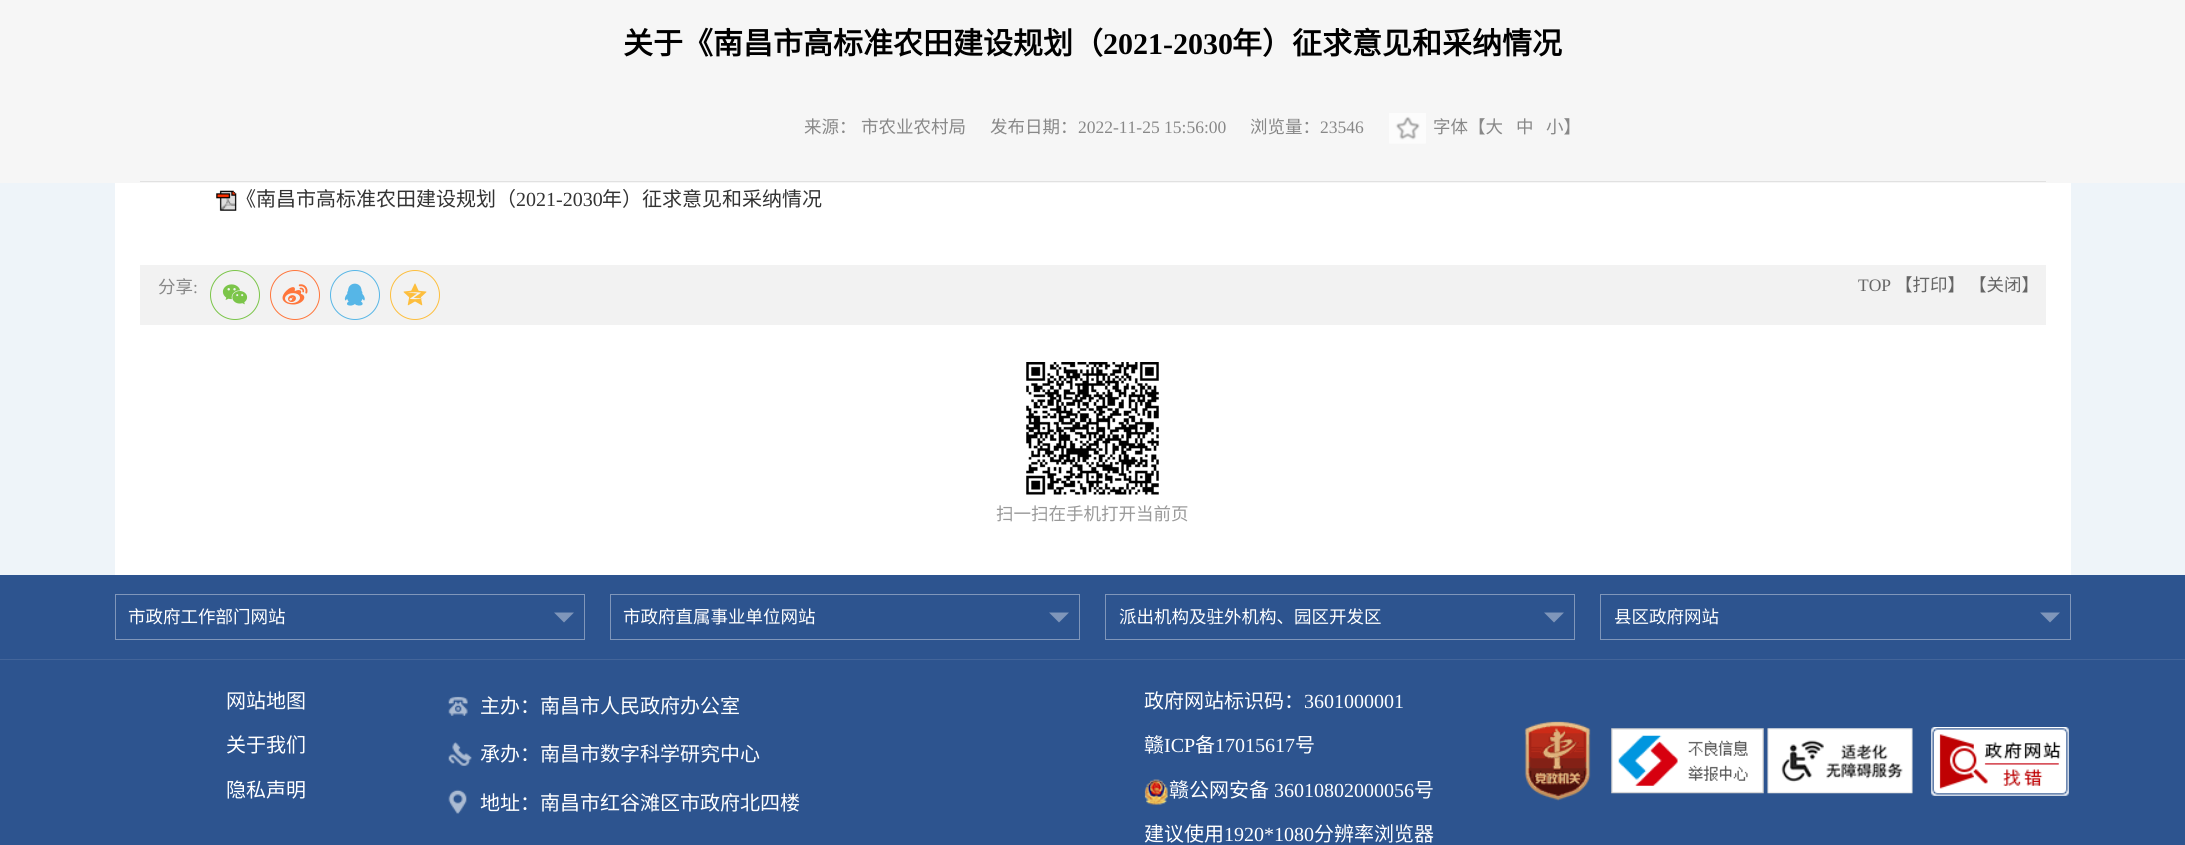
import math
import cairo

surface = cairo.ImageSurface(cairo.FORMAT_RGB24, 2185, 845)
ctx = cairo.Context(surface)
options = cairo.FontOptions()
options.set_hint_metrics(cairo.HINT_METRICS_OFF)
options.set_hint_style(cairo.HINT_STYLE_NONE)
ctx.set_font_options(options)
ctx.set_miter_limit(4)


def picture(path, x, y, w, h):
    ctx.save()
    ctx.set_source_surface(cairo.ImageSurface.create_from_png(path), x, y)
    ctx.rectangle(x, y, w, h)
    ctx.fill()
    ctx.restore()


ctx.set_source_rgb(0.933, 0.957, 0.976)
ctx.paint()
ctx.set_source_rgb(1, 1, 1)
ctx.rectangle(115, 183, 1956, 392)
ctx.fill()
ctx.set_source_rgb(0.961, 0.961, 0.961)
ctx.rectangle(0, 0, 2185, 183)
ctx.fill()
ctx.select_font_face("Noto Sans CJK SC", cairo.FONT_SLANT_NORMAL, cairo.FONT_WEIGHT_BOLD)
ctx.set_font_size(30)
ctx.set_source_rgb(0, 0, 0)
ctx.move_to(623, 54)
ctx.show_text("关于《南昌市高标准农田建设规划（")
ctx.select_font_face("Liberation Serif", cairo.FONT_SLANT_NORMAL, cairo.FONT_WEIGHT_BOLD)
ctx.move_to(1103, 54)
ctx.show_text("2021-2030")
ctx.select_font_face("Noto Sans CJK SC", cairo.FONT_SLANT_NORMAL, cairo.FONT_WEIGHT_BOLD)
ctx.move_to(1232, 54)
ctx.show_text("年）征求意见和采纳情况")
ctx.set_source_rgb(0.882, 0.882, 0.882)
ctx.rectangle(140, 181, 1906, 1)
ctx.fill()
ctx.select_font_face("Noto Sans CJK SC")
ctx.set_font_size(17.5)
ctx.set_source_rgb(0.533, 0.533, 0.533)
ctx.move_to(804, 133)
ctx.show_text("来源：")
ctx.move_to(861, 133)
ctx.show_text("市农业农村局")
ctx.move_to(990, 133)
ctx.show_text("发布日期：")
ctx.select_font_face("Liberation Serif")
ctx.move_to(1078, 133)
ctx.show_text("2022-11-25 15:56:00")
ctx.select_font_face("Noto Sans CJK SC")
ctx.move_to(1250, 133)
ctx.show_text("浏览量：")
ctx.select_font_face("Liberation Serif")
ctx.move_to(1320, 133)
ctx.show_text("23546")
picture("img1.png", 1389, 113, 37, 31)
ctx.select_font_face("Noto Sans CJK SC")
ctx.move_to(1433, 133)
ctx.show_text("字体【大")
ctx.move_to(1516, 133)
ctx.show_text("中")
ctx.move_to(1546, 133)
ctx.show_text("小】")
picture("img2.png", 216, 190, 21, 21)
ctx.set_font_size(20)
ctx.set_source_rgb(0.2, 0.2, 0.2)
ctx.move_to(236, 206)
ctx.show_text("《南昌市高标准农田建设规划（")
ctx.select_font_face("Liberation Serif")
ctx.move_to(516, 206)
ctx.show_text("2021-2030")
ctx.select_font_face("Noto Sans CJK SC")
ctx.move_to(602, 206)
ctx.show_text("年）征求意见和采纳情况")
ctx.set_source_rgb(0.949, 0.949, 0.949)
ctx.rectangle(140, 265, 1906, 60)
ctx.fill()
ctx.set_font_size(17.5)
ctx.set_source_rgb(0.533, 0.533, 0.533)
ctx.move_to(158, 293)
ctx.show_text("分享")
ctx.select_font_face("Liberation Serif")
ctx.move_to(193, 293)
ctx.show_text(":")
ctx.new_path()
ctx.arc(235, 295, 24.5, 0, 2 * math.pi)
ctx.set_source_rgb(0.482, 0.773, 0.286)
ctx.set_line_width(1)
ctx.stroke()
picture("img3.png", 222, 284, 26, 21)
ctx.arc(295, 295, 24.5, 0, 2 * math.pi)
ctx.set_source_rgb(1, 0.463, 0.231)
ctx.stroke()
picture("img4.png", 282, 284, 26, 21)
ctx.arc(355, 295, 24.5, 0, 2 * math.pi)
ctx.set_source_rgb(0.337, 0.714, 0.906)
ctx.stroke()
picture("img5.png", 344, 283, 21, 23)
ctx.arc(415, 295, 24.5, 0, 2 * math.pi)
ctx.set_source_rgb(0.992, 0.745, 0.239)
ctx.stroke()
picture("img6.png", 403, 283, 24, 23)
ctx.set_source_rgb(0.4, 0.4, 0.4)
ctx.move_to(1858, 291)
ctx.show_text("TOP")
ctx.select_font_face("Noto Sans CJK SC")
ctx.move_to(1895, 291)
ctx.show_text("【打印】")
ctx.move_to(1969, 291)
ctx.show_text("【关闭】")
picture("img7.png", 1026, 362, 133, 133)
ctx.set_source_rgb(0.6, 0.6, 0.6)
ctx.move_to(996, 520)
ctx.show_text("扫一扫在手机打开当前页")
ctx.set_source_rgb(0.176, 0.329, 0.561)
ctx.rectangle(0, 575, 2185, 270)
ctx.fill()
ctx.set_source_rgb(0.263, 0.396, 0.604)
ctx.rectangle(0, 659, 2185, 1)
ctx.fill()
ctx.rectangle(115.5, 594.5, 469, 45)
ctx.set_source_rgb(0.498, 0.588, 0.729)
ctx.stroke()
ctx.set_source_rgb(1, 1, 1)
ctx.move_to(128, 623)
ctx.show_text("市政府工作部门网站")
ctx.set_source_rgb(0.498, 0.588, 0.729)
ctx.new_path()
ctx.move_to(554, 612.5)
ctx.line_to(574, 612.5)
ctx.line_to(564, 622.5)
ctx.close_path()
ctx.fill()
ctx.rectangle(610.5, 594.5, 469, 45)
ctx.stroke()
ctx.set_source_rgb(1, 1, 1)
ctx.move_to(623, 623)
ctx.show_text("市政府直属事业单位网站")
ctx.set_source_rgb(0.498, 0.588, 0.729)
ctx.new_path()
ctx.move_to(1049, 612.5)
ctx.line_to(1069, 612.5)
ctx.line_to(1059, 622.5)
ctx.close_path()
ctx.fill()
ctx.rectangle(1105.5, 594.5, 469, 45)
ctx.stroke()
ctx.set_source_rgb(1, 1, 1)
ctx.move_to(1119, 623)
ctx.show_text("派出机构及驻外机构、园区开发区")
ctx.set_source_rgb(0.498, 0.588, 0.729)
ctx.new_path()
ctx.move_to(1544, 612.5)
ctx.line_to(1564, 612.5)
ctx.line_to(1554, 622.5)
ctx.close_path()
ctx.fill()
ctx.rectangle(1600.5, 594.5, 470, 45)
ctx.stroke()
ctx.set_source_rgb(1, 1, 1)
ctx.move_to(1614, 623)
ctx.show_text("县区政府网站")
ctx.set_source_rgb(0.498, 0.588, 0.729)
ctx.new_path()
ctx.move_to(2040, 612.5)
ctx.line_to(2060, 612.5)
ctx.line_to(2050, 622.5)
ctx.close_path()
ctx.fill()
ctx.set_font_size(20)
ctx.set_source_rgb(1, 1, 1)
ctx.move_to(226, 708)
ctx.show_text("网站地图")
ctx.move_to(226, 752)
ctx.show_text("关于我们")
ctx.move_to(226, 797)
ctx.show_text("隐私声明")
picture("img8.png", 448, 696, 20, 20)
ctx.move_to(480, 713)
ctx.show_text("主办：南昌市人民政府办公室")
picture("img9.png", 448, 742, 24, 24)
ctx.move_to(480, 761)
ctx.show_text("承办：南昌市数字科学研究中心")
picture("img10.png", 448, 789, 19, 25)
ctx.move_to(480, 810)
ctx.show_text("地址：南昌市红谷滩区市政府北四楼")
ctx.move_to(1144, 708)
ctx.show_text("政府网站标识码：")
ctx.select_font_face("Liberation Serif")
ctx.move_to(1304, 708)
ctx.show_text("3601000001")
ctx.select_font_face("Noto Sans CJK SC")
ctx.move_to(1144, 752)
ctx.show_text("赣")
ctx.select_font_face("Liberation Serif")
ctx.move_to(1164, 752)
ctx.show_text("ICP")
ctx.select_font_face("Noto Sans CJK SC")
ctx.move_to(1195, 752)
ctx.show_text("备")
ctx.select_font_face("Liberation Serif")
ctx.move_to(1215, 752)
ctx.show_text("17015617")
ctx.select_font_face("Noto Sans CJK SC")
ctx.move_to(1295, 752)
ctx.show_text("号")
picture("img11.png", 1144, 779, 24, 26)
ctx.move_to(1169, 797)
ctx.show_text("赣公网安备")
ctx.select_font_face("Liberation Serif")
ctx.move_to(1274, 797)
ctx.show_text("36010802000056")
ctx.select_font_face("Noto Sans CJK SC")
ctx.move_to(1414, 797)
ctx.show_text("号")
ctx.move_to(1144, 841)
ctx.show_text("建议使用")
ctx.select_font_face("Liberation Serif")
ctx.move_to(1224, 841)
ctx.show_text("1920*1080")
ctx.select_font_face("Noto Sans CJK SC")
ctx.move_to(1314, 841)
ctx.show_text("分辨率浏览器")
picture("img12.png", 1524, 721, 67, 80)
picture("img13.png", 1611, 728, 153, 66)
picture("img14.png", 1767, 728, 146, 66)
picture("img15.png", 1931, 727, 138, 69)
surface.write_to_png("page.png")
